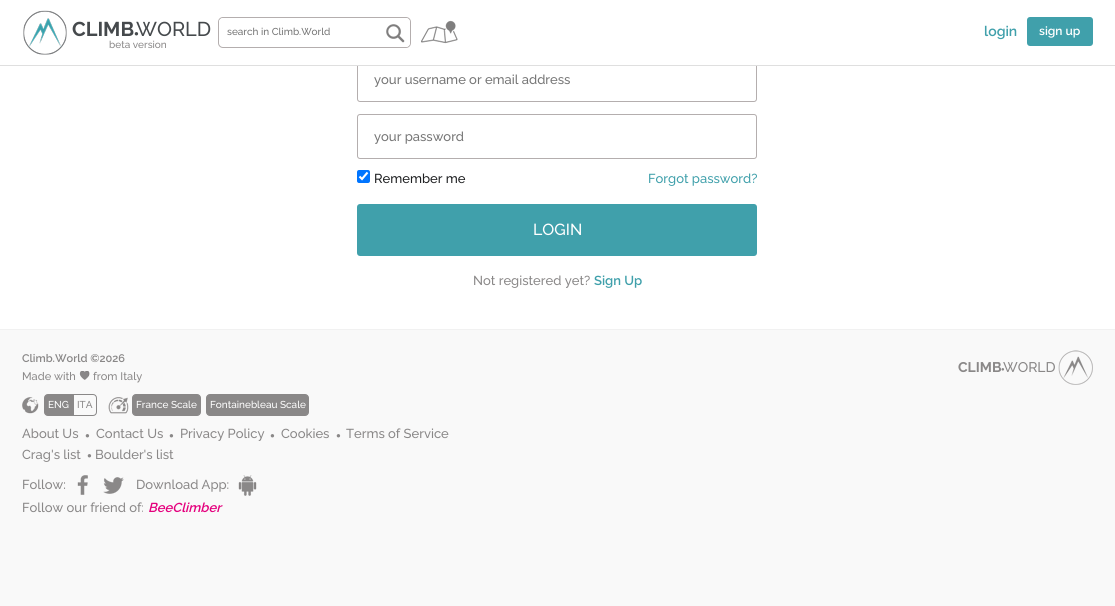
import math
import cairo

surface = cairo.ImageSurface(cairo.FORMAT_RGB24, 1115, 606)
ctx = cairo.Context(surface)
options = cairo.FontOptions()
options.set_hint_metrics(cairo.HINT_METRICS_OFF)
options.set_hint_style(cairo.HINT_STYLE_NONE)
ctx.set_font_options(options)
ctx.set_miter_limit(4)


def spaced_text(x, y, s, letter, word):
    ctx.move_to(x, y)
    for ch in s:
        ctx.show_text(ch)
        ctx.rel_move_to(letter + word * (ch == ' '), 0)


def round_rect(x, y, w, h, r):
    ctx.new_sub_path()
    for i, (u, v) in enumerate([(x + w - r, y + h - r), (x + r, y + h - r), (x + r, y + r), (x + w - r, y + r)]):
        ctx.arc(u, v, r, i * math.pi / 2, (i + 1) * math.pi / 2)
    ctx.close_path()


def picture(path, x, y, w, h):
    ctx.save()
    ctx.set_source_surface(cairo.ImageSurface.create_from_png(path), x, y)
    ctx.rectangle(x, y, w, h)
    ctx.fill()
    ctx.restore()


ctx.set_source_rgb(0.976, 0.976, 0.976)
ctx.paint()
ctx.set_source_rgb(1, 1, 1)
ctx.rectangle(0, 66, 1115, 263)
ctx.fill()
round_rect(357.5, 57.5, 399, 44, 2.5)
ctx.set_source_rgb(0.706, 0.682, 0.682)
ctx.set_line_width(1)
ctx.stroke()
ctx.set_source_rgb(1, 1, 1)
ctx.rectangle(0, 0, 1115, 65)
ctx.fill()
ctx.set_source_rgb(0.875, 0.875, 0.875)
ctx.rectangle(0, 65, 1115, 1)
ctx.fill()
picture("img1.png", 23, 10, 44, 45)
ctx.select_font_face("Raleway", cairo.FONT_SLANT_NORMAL, cairo.FONT_WEIGHT_BOLD)
ctx.set_font_size(20)
ctx.set_source_rgb(0.271, 0.286, 0.298)
ctx.move_to(72, 36)
ctx.show_text("CLIMB")
ctx.select_font_face("Liberation Sans")
ctx.set_font_size(8)
spaced_text(134, 36, "●", -3, 0)
ctx.select_font_face("Raleway Medium")
ctx.set_font_size(20)
ctx.move_to(136, 36)
ctx.show_text("WORLD")
ctx.set_font_size(10)
ctx.set_source_rgb(0.541, 0.533, 0.533)
ctx.move_to(109, 48)
ctx.show_text("beta version")
round_rect(218.5, 17.5, 192, 30, 4.5)
ctx.set_source_rgb(0.706, 0.682, 0.682)
ctx.stroke()
ctx.set_source_rgb(1, 1, 1)
ctx.new_path()
ctx.move_to(223, 18)
ctx.line_to(380, 18)
ctx.line_to(380, 45)
ctx.line_to(223, 45)
ctx.curve_to(221, 45, 219, 43, 219, 41)
ctx.line_to(219, 22)
ctx.curve_to(219, 20, 221, 18, 223, 18)
ctx.close_path()
ctx.fill()
ctx.set_source_rgb(0.459, 0.459, 0.459)
ctx.move_to(227, 35)
ctx.show_text("search in Climb.World")
ctx.set_source_rgb(1, 1, 1)
ctx.new_path()
ctx.move_to(380, 18)
ctx.line_to(406, 18)
ctx.curve_to(408, 18, 410, 20, 410, 22)
ctx.line_to(410, 43)
ctx.curve_to(410, 45, 408, 47, 406, 47)
ctx.line_to(380, 47)
ctx.close_path()
ctx.fill()
picture("img2.png", 386, 24, 19, 19)
picture("img3.png", 421, 20, 37, 24)
ctx.select_font_face("Raleway SemiBold")
ctx.set_font_size(14)
ctx.set_source_rgb(0.251, 0.627, 0.671)
ctx.move_to(984, 36)
ctx.show_text("login")
round_rect(1027, 17, 66, 29, 3)
ctx.fill()
ctx.set_font_size(12)
ctx.set_source_rgb(1, 1, 1)
ctx.move_to(1039, 35)
ctx.show_text("sign up")
ctx.select_font_face("Raleway Medium")
ctx.set_font_size(13)
ctx.set_source_rgb(0.459, 0.459, 0.459)
ctx.move_to(374, 84)
ctx.show_text("your username or email address")
round_rect(357.5, 114.5, 399, 44, 2.5)
ctx.set_source_rgb(0.706, 0.682, 0.682)
ctx.stroke()
ctx.set_source_rgb(0.459, 0.459, 0.459)
ctx.move_to(374, 141)
ctx.show_text("your password")
ctx.set_source_rgb(0, 0.459, 1)
round_rect(357, 170, 13, 13, 2)
ctx.fill()
ctx.new_path()
ctx.move_to(359.5, 176.5)
ctx.line_to(362, 179)
ctx.line_to(367.5, 172.5)
ctx.set_source_rgb(1, 1, 1)
ctx.set_line_width(2.1)
ctx.stroke()
ctx.set_source_rgb(0.122, 0.125, 0.133)
ctx.move_to(374, 183)
ctx.show_text("Remember me")
ctx.set_source_rgb(0.251, 0.627, 0.671)
ctx.move_to(648, 183)
ctx.show_text("Forgot password?")
round_rect(357, 204, 400, 52, 3)
ctx.fill()
ctx.set_font_size(16)
ctx.set_source_rgb(1, 1, 1)
ctx.move_to(533, 235)
ctx.show_text("LOGIN")
ctx.set_font_size(13)
ctx.set_source_rgb(0.541, 0.533, 0.533)
ctx.move_to(473, 285)
ctx.show_text("Not registered yet?")
ctx.select_font_face("Raleway SemiBold")
ctx.set_source_rgb(0.251, 0.627, 0.671)
ctx.move_to(594, 285)
ctx.show_text("Sign Up")
ctx.set_source_rgb(0.945, 0.945, 0.945)
ctx.rectangle(0, 329, 1115, 1)
ctx.fill()
ctx.set_font_size(11)
ctx.set_source_rgb(0.541, 0.533, 0.533)
ctx.move_to(22, 362)
ctx.show_text("Climb.World ©2026")
ctx.select_font_face("Raleway Medium")
ctx.move_to(22, 380)
ctx.show_text("Made with")
picture("img4.png", 79, 371, 11, 9)
ctx.move_to(93, 380)
ctx.show_text("from Italy")
picture("img5.png", 22, 397, 17, 17)
ctx.new_path()
ctx.move_to(48, 394.5)
ctx.line_to(72.5, 394.5)
ctx.line_to(72.5, 415.5)
ctx.line_to(48, 415.5)
ctx.curve_to(46, 415.5, 44.5, 414, 44.5, 412)
ctx.line_to(44.5, 398)
ctx.curve_to(44.5, 396, 46, 394.5, 48, 394.5)
ctx.close_path()
ctx.fill_preserve()
ctx.set_line_width(1)
ctx.stroke()
ctx.set_font_size(10)
ctx.set_source_rgb(1, 1, 1)
ctx.move_to(48, 408)
ctx.show_text("ENG")
ctx.new_path()
ctx.move_to(73.5, 394.5)
ctx.line_to(93, 394.5)
ctx.curve_to(95, 394.5, 96.5, 396, 96.5, 398)
ctx.line_to(96.5, 412)
ctx.curve_to(96.5, 414, 95, 415.5, 93, 415.5)
ctx.line_to(73.5, 415.5)
ctx.close_path()
ctx.set_source_rgb(0.541, 0.533, 0.533)
ctx.stroke()
ctx.move_to(77, 408)
ctx.show_text("ITA")
picture("img6.png", 108, 397, 21, 17)
round_rect(132.5, 394.5, 68, 21, 3.5)
ctx.fill_preserve()
ctx.stroke()
ctx.set_source_rgb(1, 1, 1)
ctx.move_to(136, 408)
ctx.show_text("France Scale")
ctx.set_source_rgb(0.541, 0.533, 0.533)
round_rect(206.5, 394.5, 102, 21, 3.5)
ctx.fill_preserve()
ctx.stroke()
ctx.set_source_rgb(1, 1, 1)
ctx.move_to(210, 408)
ctx.show_text("Fontainebleau Scale")
ctx.set_font_size(13)
ctx.set_source_rgb(0.541, 0.533, 0.533)
ctx.move_to(22, 438)
ctx.show_text("About Us")
ctx.select_font_face("Liberation Sans")
ctx.set_font_size(8)
ctx.move_to(85, 438)
ctx.show_text("●")
ctx.select_font_face("Raleway Medium")
ctx.set_font_size(13)
ctx.move_to(96, 438)
ctx.show_text("Contact Us")
ctx.select_font_face("Liberation Sans")
ctx.set_font_size(8)
ctx.move_to(169, 438)
ctx.show_text("●")
ctx.select_font_face("Raleway Medium")
ctx.set_font_size(13)
ctx.move_to(180, 438)
ctx.show_text("Privacy Policy")
ctx.select_font_face("Liberation Sans")
ctx.set_font_size(8)
ctx.move_to(270, 438)
ctx.show_text("●")
ctx.select_font_face("Raleway Medium")
ctx.set_font_size(13)
ctx.move_to(281, 438)
ctx.show_text("Cookies")
ctx.select_font_face("Liberation Sans")
ctx.set_font_size(8)
ctx.move_to(336, 438)
ctx.show_text("●")
ctx.select_font_face("Raleway Medium")
ctx.set_font_size(13)
ctx.move_to(346, 438)
ctx.show_text("Terms of Service")
ctx.move_to(22, 459)
ctx.show_text("Crag's list")
ctx.select_font_face("Liberation Sans")
ctx.set_font_size(8)
ctx.move_to(87, 458)
ctx.show_text("●")
ctx.select_font_face("Raleway Medium")
ctx.set_font_size(13)
ctx.move_to(95, 459)
ctx.show_text("Boulder's list")
ctx.move_to(22, 489)
ctx.show_text("Follow:")
picture("img7.png", 77, 475, 11, 20)
picture("img8.png", 103, 477, 21, 17)
ctx.move_to(136, 489)
ctx.show_text("Download App:")
picture("img9.png", 238, 475, 19, 21)
ctx.move_to(22, 512)
ctx.show_text("Follow our friend of:")
ctx.select_font_face("Raleway SemiBold", cairo.FONT_SLANT_ITALIC)
ctx.set_source_rgb(0.894, 0, 0.49)
ctx.move_to(148, 512)
ctx.show_text("BeeClimber")
picture("img10.png", 1058, 350, 35, 35)
ctx.select_font_face("Raleway", cairo.FONT_SLANT_NORMAL, cairo.FONT_WEIGHT_BOLD)
ctx.set_font_size(14)
ctx.set_source_rgb(0.541, 0.533, 0.533)
ctx.move_to(958, 372)
ctx.show_text("CLIMB")
ctx.select_font_face("Liberation Sans")
ctx.set_font_size(6)
spaced_text(1001, 371, "●", -2, 0)
ctx.select_font_face("Raleway Medium")
ctx.set_font_size(14)
ctx.move_to(1003, 372)
ctx.show_text("WORLD")
surface.write_to_png("page.png")
